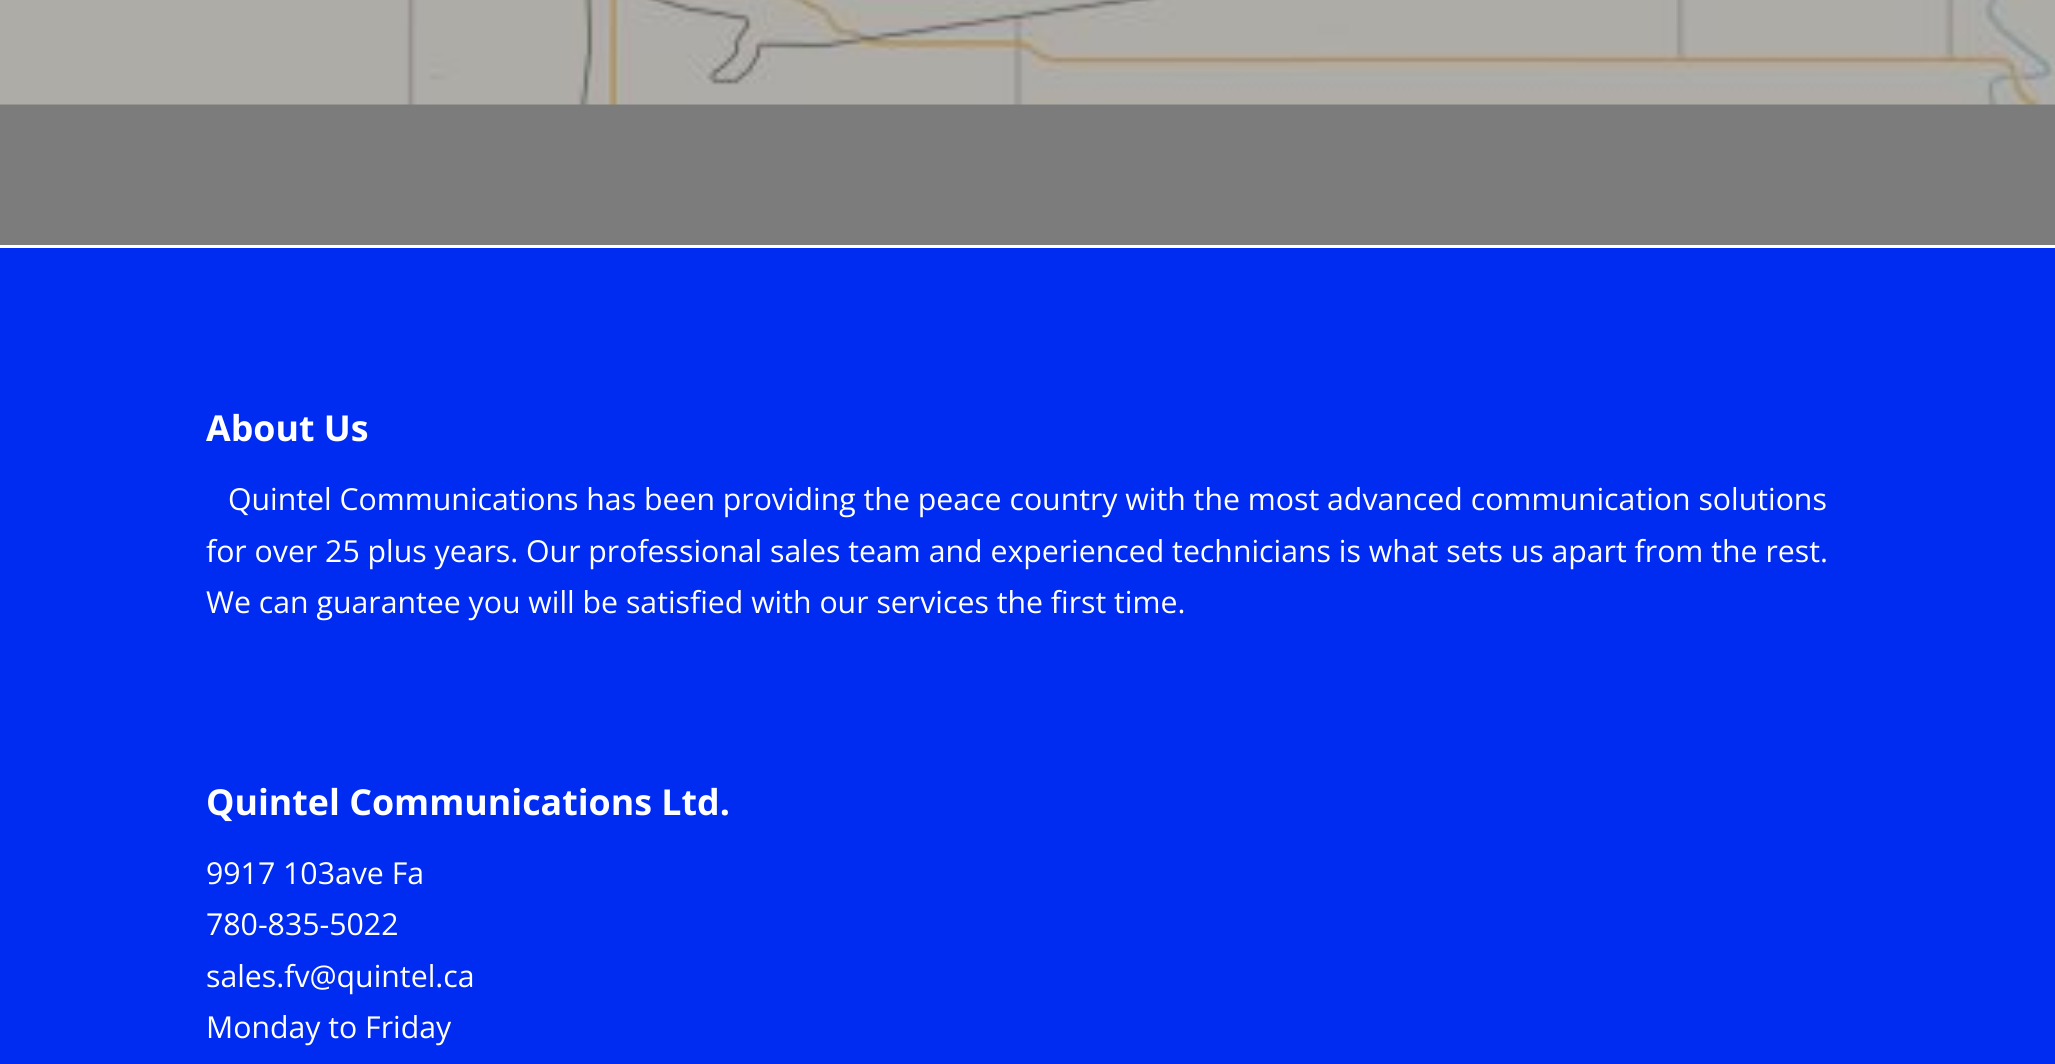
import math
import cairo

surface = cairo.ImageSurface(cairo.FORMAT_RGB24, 2055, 1064)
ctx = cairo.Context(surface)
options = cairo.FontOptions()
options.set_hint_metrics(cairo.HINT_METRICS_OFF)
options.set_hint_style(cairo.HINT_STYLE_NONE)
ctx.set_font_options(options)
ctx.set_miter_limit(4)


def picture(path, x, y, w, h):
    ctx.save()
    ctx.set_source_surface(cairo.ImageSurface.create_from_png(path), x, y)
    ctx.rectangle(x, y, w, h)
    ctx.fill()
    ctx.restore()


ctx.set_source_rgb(1, 1, 1)
ctx.paint()
ctx.set_source_rgb(0.486, 0.486, 0.486)
ctx.rectangle(0, 104, 2055, 141)
ctx.fill()
picture("img1.png", 0, 0, 2055, 105)
ctx.set_source_rgb(0, 0.173, 0.949)
ctx.rectangle(0, 248, 2055, 816)
ctx.fill()
ctx.select_font_face("Open Sans", cairo.FONT_SLANT_NORMAL, cairo.FONT_WEIGHT_BOLD)
ctx.set_font_size(35.75)
ctx.set_source_rgb(1, 1, 1)
ctx.move_to(206, 441)
ctx.show_text("About Us")
ctx.select_font_face("Open Sans")
ctx.set_font_size(30.25)
ctx.move_to(228, 510)
ctx.show_text("Quintel Communications has been providing the peace country with the most advanced communication solutions")
ctx.move_to(206, 562)
ctx.show_text("for over 25 plus years. Our professional sales team and experienced technicians is what sets us apart from the rest.")
ctx.move_to(206, 613)
ctx.show_text("We can guarantee you will be satisfied with our services the first time.")
ctx.select_font_face("Open Sans", cairo.FONT_SLANT_NORMAL, cairo.FONT_WEIGHT_BOLD)
ctx.set_font_size(35.75)
ctx.move_to(206, 815)
ctx.show_text("Quintel Communications Ltd.")
ctx.select_font_face("Open Sans")
ctx.set_font_size(30.25)
ctx.move_to(206, 884)
ctx.show_text("9917 103ave Fa")
ctx.move_to(206, 935)
ctx.show_text("780-835-5022")
ctx.move_to(206, 987)
ctx.show_text("sales.fv@quintel.ca")
ctx.move_to(206, 1038)
ctx.show_text("Monday to Friday")
surface.write_to_png("page.png")
